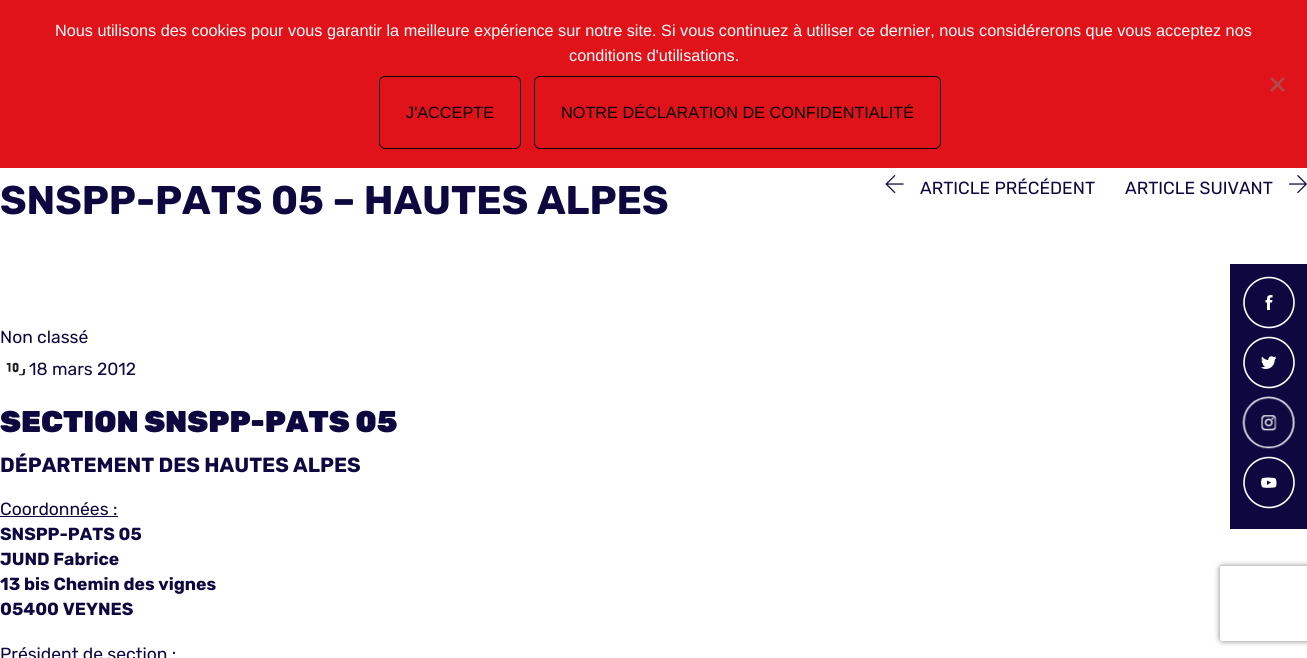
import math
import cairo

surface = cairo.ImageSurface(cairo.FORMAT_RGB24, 1307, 658)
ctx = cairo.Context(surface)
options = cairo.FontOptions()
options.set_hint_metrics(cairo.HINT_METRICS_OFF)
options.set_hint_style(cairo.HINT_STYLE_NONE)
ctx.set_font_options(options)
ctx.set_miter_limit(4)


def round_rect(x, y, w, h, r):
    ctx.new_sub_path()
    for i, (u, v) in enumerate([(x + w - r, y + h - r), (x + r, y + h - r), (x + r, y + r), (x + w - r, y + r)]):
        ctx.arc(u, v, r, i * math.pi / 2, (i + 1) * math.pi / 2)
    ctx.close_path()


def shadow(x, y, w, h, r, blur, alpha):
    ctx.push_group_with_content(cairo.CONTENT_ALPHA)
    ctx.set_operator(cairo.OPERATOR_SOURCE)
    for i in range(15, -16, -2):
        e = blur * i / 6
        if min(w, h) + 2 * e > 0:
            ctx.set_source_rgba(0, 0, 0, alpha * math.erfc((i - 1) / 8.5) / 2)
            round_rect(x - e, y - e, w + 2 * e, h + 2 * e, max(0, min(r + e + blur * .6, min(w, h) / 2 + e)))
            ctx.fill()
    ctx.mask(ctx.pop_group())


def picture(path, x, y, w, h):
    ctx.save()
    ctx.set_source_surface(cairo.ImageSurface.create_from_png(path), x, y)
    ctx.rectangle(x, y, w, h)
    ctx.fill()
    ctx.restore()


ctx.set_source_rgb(1, 1, 1)
ctx.paint()
ctx.set_source_rgb(0.882, 0.078, 0.102)
ctx.rectangle(0, 0, 1307, 168)
ctx.fill()
ctx.select_font_face("Liberation Sans")
ctx.set_font_size(16.25)
ctx.set_source_rgb(1, 1, 1)
ctx.move_to(55, 36)
ctx.show_text("Nous utilisons des cookies pour vous garantir la meilleure expérience sur notre site. Si vous continuez à utiliser ce dernier, nous considérerons que vous acceptez nos")
ctx.move_to(569, 61)
ctx.show_text("conditions d'utilisations.")
ctx.set_source_rgb(0.694, 0.29, 0.302)
ctx.new_path()
ctx.move_to(1283, 77)
ctx.line_to(1285, 78.5)
ctx.line_to(1272, 92)
ctx.line_to(1270, 90)
ctx.close_path()
ctx.fill()
ctx.new_path()
ctx.move_to(1270, 78.5)
ctx.line_to(1272, 77)
ctx.line_to(1285, 90)
ctx.line_to(1283, 92)
ctx.close_path()
ctx.fill()
round_rect(379.5, 76.5, 141, 72, 5.5)
ctx.set_source_rgb(0, 0, 0)
ctx.set_line_width(1)
ctx.stroke()
ctx.move_to(406, 118)
ctx.show_text("J'ACCEPTE")
round_rect(534.5, 76.5, 406, 72, 5.5)
ctx.stroke()
ctx.move_to(561, 118)
ctx.show_text("NOTRE DÉCLARATION DE CONFIDENTIALITÉ")
ctx.select_font_face("Rubik", cairo.FONT_SLANT_NORMAL, cairo.FONT_WEIGHT_BOLD)
ctx.set_font_size(40)
ctx.set_source_rgb(0.051, 0.039, 0.251)
ctx.move_to(0, 214)
ctx.show_text("SNSPP-PATS 05 – HAUTES ALPES")
picture("img1.png", 885, 175, 19, 19)
ctx.select_font_face("Rubik")
ctx.set_font_size(17.5)
ctx.move_to(920, 194)
ctx.show_text("ARTICLE PRÉCÉDENT")
ctx.move_to(1125, 194)
ctx.show_text("ARTICLE SUIVANT")
picture("img2.png", 1289, 175, 18, 19)
ctx.move_to(0, 343)
ctx.show_text("Non classé")
picture("img3.png", 6, 362, 19, 14)
ctx.move_to(29, 375)
ctx.show_text("18 mars 2012")
ctx.select_font_face("Rubik Black")
ctx.set_font_size(30)
ctx.move_to(0, 432)
ctx.show_text("SECTION SNSPP-PATS 05")
ctx.select_font_face("Rubik", cairo.FONT_SLANT_NORMAL, cairo.FONT_WEIGHT_BOLD)
ctx.set_font_size(20.5)
ctx.move_to(0, 472)
ctx.show_text("DÉPARTEMENT DES HAUTES ALPES")
ctx.select_font_face("Rubik")
ctx.set_font_size(17.5)
ctx.move_to(0, 515)
ctx.show_text("Coordonnées :")
ctx.rectangle(0, 516, 118, 1)
ctx.fill()
ctx.select_font_face("Rubik", cairo.FONT_SLANT_NORMAL, cairo.FONT_WEIGHT_BOLD)
ctx.move_to(0, 540)
ctx.show_text("SNSPP-PATS 05")
ctx.move_to(0, 565)
ctx.show_text("JUND Fabrice")
ctx.move_to(0, 590)
ctx.show_text("13 bis Chemin des vignes")
ctx.move_to(0, 615)
ctx.show_text("05400 VEYNES")
ctx.select_font_face("Rubik")
ctx.move_to(0, 660)
ctx.show_text("Président de section :")
ctx.rectangle(1230, 264, 77, 265)
ctx.fill()
ctx.arc(1269, 302.5, 25, 0, 2 * math.pi)
ctx.set_source_rgb(1, 1, 1)
ctx.set_line_width(1.6)
ctx.stroke()
ctx.set_fill_rule(cairo.FILL_RULE_EVEN_ODD)
ctx.new_path()
ctx.move_to(1272, 302.5)
ctx.line_to(1270, 302.5)
ctx.line_to(1270, 310)
ctx.line_to(1267, 310)
ctx.line_to(1267, 302.5)
ctx.line_to(1265.5, 302.5)
ctx.line_to(1265.5, 300)
ctx.line_to(1267, 300)
ctx.curve_to(1267, 295.5, 1268, 295, 1272.5, 295)
ctx.line_to(1272.5, 297.5)
ctx.curve_to(1270, 297.5, 1270, 297, 1270, 300)
ctx.line_to(1272.5, 300)
ctx.close_path()
ctx.fill()
picture("img4.png", 1243, 336, 52, 53)
picture("img5.png", 1242, 396, 53, 53)
ctx.arc(1269, 482.5, 25, 0, 2 * math.pi)
ctx.stroke()
ctx.new_path()
ctx.move_to(1274.5, 478)
ctx.curve_to(1277, 478.5, 1277, 486, 1275.5, 487)
ctx.curve_to(1274, 488, 1265, 488, 1263, 487.5)
ctx.curve_to(1260.5, 487, 1260.5, 479, 1262.5, 478)
ctx.line_to(1268, 477.5)
ctx.close_path()
ctx.move_to(1271, 482.5)
ctx.line_to(1267, 485)
ctx.line_to(1267, 480.5)
ctx.close_path()
ctx.fill()
ctx.save()
ctx.new_path()
ctx.move_to(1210, 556)
ctx.line_to(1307, 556)
ctx.line_to(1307, 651)
ctx.line_to(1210, 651)
ctx.close_path()
ctx.move_to(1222.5, 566)
ctx.line_to(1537.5, 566)
ctx.curve_to(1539, 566, 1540, 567, 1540, 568.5)
ctx.line_to(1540, 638.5)
ctx.curve_to(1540, 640, 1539, 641, 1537.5, 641)
ctx.line_to(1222.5, 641)
ctx.curve_to(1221, 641, 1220, 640, 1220, 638.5)
ctx.line_to(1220, 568.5)
ctx.curve_to(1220, 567, 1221, 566, 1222.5, 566)
ctx.close_path()
ctx.clip()
ctx.set_source_rgb(0.502, 0.502, 0.502)
shadow(1220, 566, 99, 75, 2.5, 3, 1)
ctx.restore()
surface.write_to_png("page.png")
